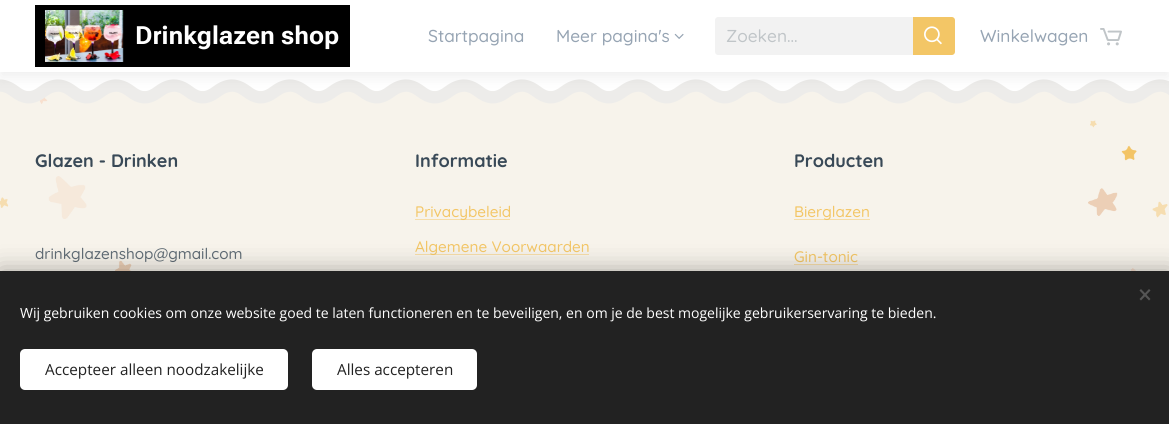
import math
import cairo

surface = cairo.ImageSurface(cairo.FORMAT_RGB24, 1169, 424)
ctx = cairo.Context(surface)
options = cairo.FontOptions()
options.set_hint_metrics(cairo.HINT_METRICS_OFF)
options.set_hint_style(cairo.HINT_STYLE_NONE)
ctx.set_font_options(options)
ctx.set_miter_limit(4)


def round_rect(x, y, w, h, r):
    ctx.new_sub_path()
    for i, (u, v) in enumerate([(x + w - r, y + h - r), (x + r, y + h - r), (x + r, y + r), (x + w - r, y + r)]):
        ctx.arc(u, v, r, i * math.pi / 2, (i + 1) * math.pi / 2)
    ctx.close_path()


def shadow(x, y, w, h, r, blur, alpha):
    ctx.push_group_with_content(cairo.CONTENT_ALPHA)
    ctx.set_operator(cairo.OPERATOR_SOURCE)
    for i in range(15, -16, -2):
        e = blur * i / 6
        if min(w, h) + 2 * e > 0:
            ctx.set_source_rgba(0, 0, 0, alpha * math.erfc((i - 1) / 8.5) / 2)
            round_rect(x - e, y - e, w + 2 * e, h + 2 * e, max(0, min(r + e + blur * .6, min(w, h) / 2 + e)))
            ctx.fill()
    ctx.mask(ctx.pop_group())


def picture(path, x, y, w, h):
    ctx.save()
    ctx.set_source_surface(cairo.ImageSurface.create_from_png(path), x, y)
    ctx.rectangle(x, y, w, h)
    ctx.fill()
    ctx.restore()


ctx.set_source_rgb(1, 1, 1)
ctx.paint()
picture("img5.png", 0, 79, 1169, 12)
picture("img6.png", 0, 91, 1169, 180)
picture("img7.png", 0, 91, 1169, 13)
ctx.set_source_rgb(0, 0, 0)
shadow(0, 5, 1169, 72, 0, 7.5, 0.07)
ctx.set_source_rgb(1, 1, 1)
ctx.rectangle(0, 0, 1169, 72)
ctx.fill()
ctx.set_source_rgb(0, 0, 0)
ctx.rectangle(35, 5, 315, 62)
ctx.fill()
picture("img1.png", 45, 10, 79, 52)
ctx.select_font_face("Roboto Flex", cairo.FONT_SLANT_NORMAL, cairo.FONT_WEIGHT_BOLD)
ctx.set_font_size(25)
ctx.set_source_rgb(1, 1, 1)
ctx.move_to(135, 44)
ctx.show_text("Drinkglazen shop")
ctx.select_font_face("Quicksand Medium")
ctx.set_font_size(17.25)
ctx.set_source_rgb(0.588, 0.643, 0.702)
ctx.move_to(428, 42)
ctx.show_text("Startpagina")
ctx.move_to(556, 42)
ctx.show_text("Meer pagina's")
picture("img2.png", 674, 33, 10, 6)
ctx.set_source_rgb(0.949, 0.949, 0.949)
ctx.new_path()
ctx.move_to(718, 17)
ctx.line_to(913, 17)
ctx.line_to(913, 55)
ctx.line_to(718, 55)
ctx.curve_to(716.5, 55, 715, 53.5, 715, 52)
ctx.line_to(715, 20)
ctx.curve_to(715, 18.5, 716.5, 17, 718, 17)
ctx.close_path()
ctx.fill()
ctx.set_source_rgb(0.753, 0.773, 0.784)
ctx.move_to(726, 42)
ctx.show_text("Zoeken...")
ctx.set_source_rgb(0.953, 0.776, 0.4)
ctx.new_path()
ctx.move_to(913, 17)
ctx.line_to(952, 17)
ctx.curve_to(953.5, 17, 955, 18.5, 955, 20)
ctx.line_to(955, 52)
ctx.curve_to(955, 53.5, 953.5, 55, 952, 55)
ctx.line_to(913, 55)
ctx.close_path()
ctx.fill()
picture("img3.png", 924, 26, 18, 19)
ctx.set_source_rgb(0.588, 0.643, 0.702)
ctx.move_to(980, 42)
ctx.show_text("Winkelwagen")
picture("img4.png", 1100, 28, 22, 18)
ctx.select_font_face("Quicksand", cairo.FONT_SLANT_NORMAL, cairo.FONT_WEIGHT_BOLD)
ctx.set_font_size(18)
ctx.set_source_rgb(0.224, 0.286, 0.341)
ctx.move_to(35, 167)
ctx.show_text("Glazen - Drinken")
ctx.select_font_face("Quicksand Medium")
ctx.set_font_size(15.25)
ctx.set_source_rgb(0.38, 0.427, 0.463)
ctx.move_to(35, 259)
ctx.show_text("drinkglazenshop@gmail.com")
ctx.select_font_face("Quicksand", cairo.FONT_SLANT_NORMAL, cairo.FONT_WEIGHT_BOLD)
ctx.set_font_size(18)
ctx.set_source_rgb(0.224, 0.286, 0.341)
ctx.move_to(415, 167)
ctx.show_text("Informatie")
ctx.set_source_rgb(0.961, 0.867, 0.663)
ctx.rectangle(415, 219, 95, 1)
ctx.fill()
ctx.select_font_face("Quicksand Medium")
ctx.set_font_size(15.25)
ctx.set_source_rgb(0.953, 0.776, 0.4)
ctx.move_to(415, 217)
ctx.show_text("Privacybeleid")
ctx.set_source_rgb(0.961, 0.867, 0.663)
ctx.rectangle(415, 254, 174, 1)
ctx.fill()
ctx.set_source_rgb(0.953, 0.776, 0.4)
ctx.move_to(415, 252)
ctx.show_text("Algemene Voorwaarden")
ctx.select_font_face("Quicksand", cairo.FONT_SLANT_NORMAL, cairo.FONT_WEIGHT_BOLD)
ctx.set_font_size(18)
ctx.set_source_rgb(0.224, 0.286, 0.341)
ctx.move_to(794, 167)
ctx.show_text("Producten")
ctx.set_source_rgb(0.961, 0.867, 0.663)
ctx.rectangle(794, 219, 76, 1)
ctx.fill()
ctx.select_font_face("Quicksand Medium")
ctx.set_font_size(15.25)
ctx.set_source_rgb(0.953, 0.776, 0.4)
ctx.move_to(794, 217)
ctx.show_text("Bierglazen")
ctx.move_to(794, 262)
ctx.show_text("Gin-tonic")
ctx.set_source_rgb(0.961, 0.867, 0.663)
ctx.rectangle(794, 264, 64, 1)
ctx.fill()
ctx.set_source_rgb(0, 0, 0)
shadow(0, 271, 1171, 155, 0, 12.5, 0.33)
ctx.set_source_rgb(0.133, 0.133, 0.133)
ctx.rectangle(0, 271, 1169, 153)
ctx.fill()
ctx.set_source_rgb(0.333, 0.333, 0.333)
ctx.new_path()
ctx.move_to(1139.5, 299)
ctx.line_to(1149, 289)
ctx.line_to(1150.5, 290.5)
ctx.line_to(1141, 300.5)
ctx.close_path()
ctx.fill()
ctx.new_path()
ctx.move_to(1141, 289)
ctx.line_to(1150.5, 299)
ctx.line_to(1149, 300.5)
ctx.line_to(1139.5, 290.5)
ctx.close_path()
ctx.fill()
ctx.select_font_face("Open Sans")
ctx.set_font_size(14)
ctx.set_source_rgb(1, 1, 1)
ctx.move_to(20, 318)
ctx.show_text("Wij gebruiken cookies om onze website goed te laten functioneren en te beveiligen, en om je de best mogelijke gebruikerservaring te bieden.")
round_rect(20, 349, 268, 41, 5)
ctx.fill()
ctx.set_font_size(15.25)
ctx.set_source_rgb(0.133, 0.133, 0.133)
ctx.move_to(45, 375)
ctx.show_text("Accepteer alleen noodzakelijke")
ctx.set_source_rgb(1, 1, 1)
round_rect(312, 349, 165, 41, 5)
ctx.fill()
ctx.set_source_rgb(0.133, 0.133, 0.133)
ctx.move_to(337, 375)
ctx.show_text("Alles accepteren")
surface.write_to_png("page.png")
